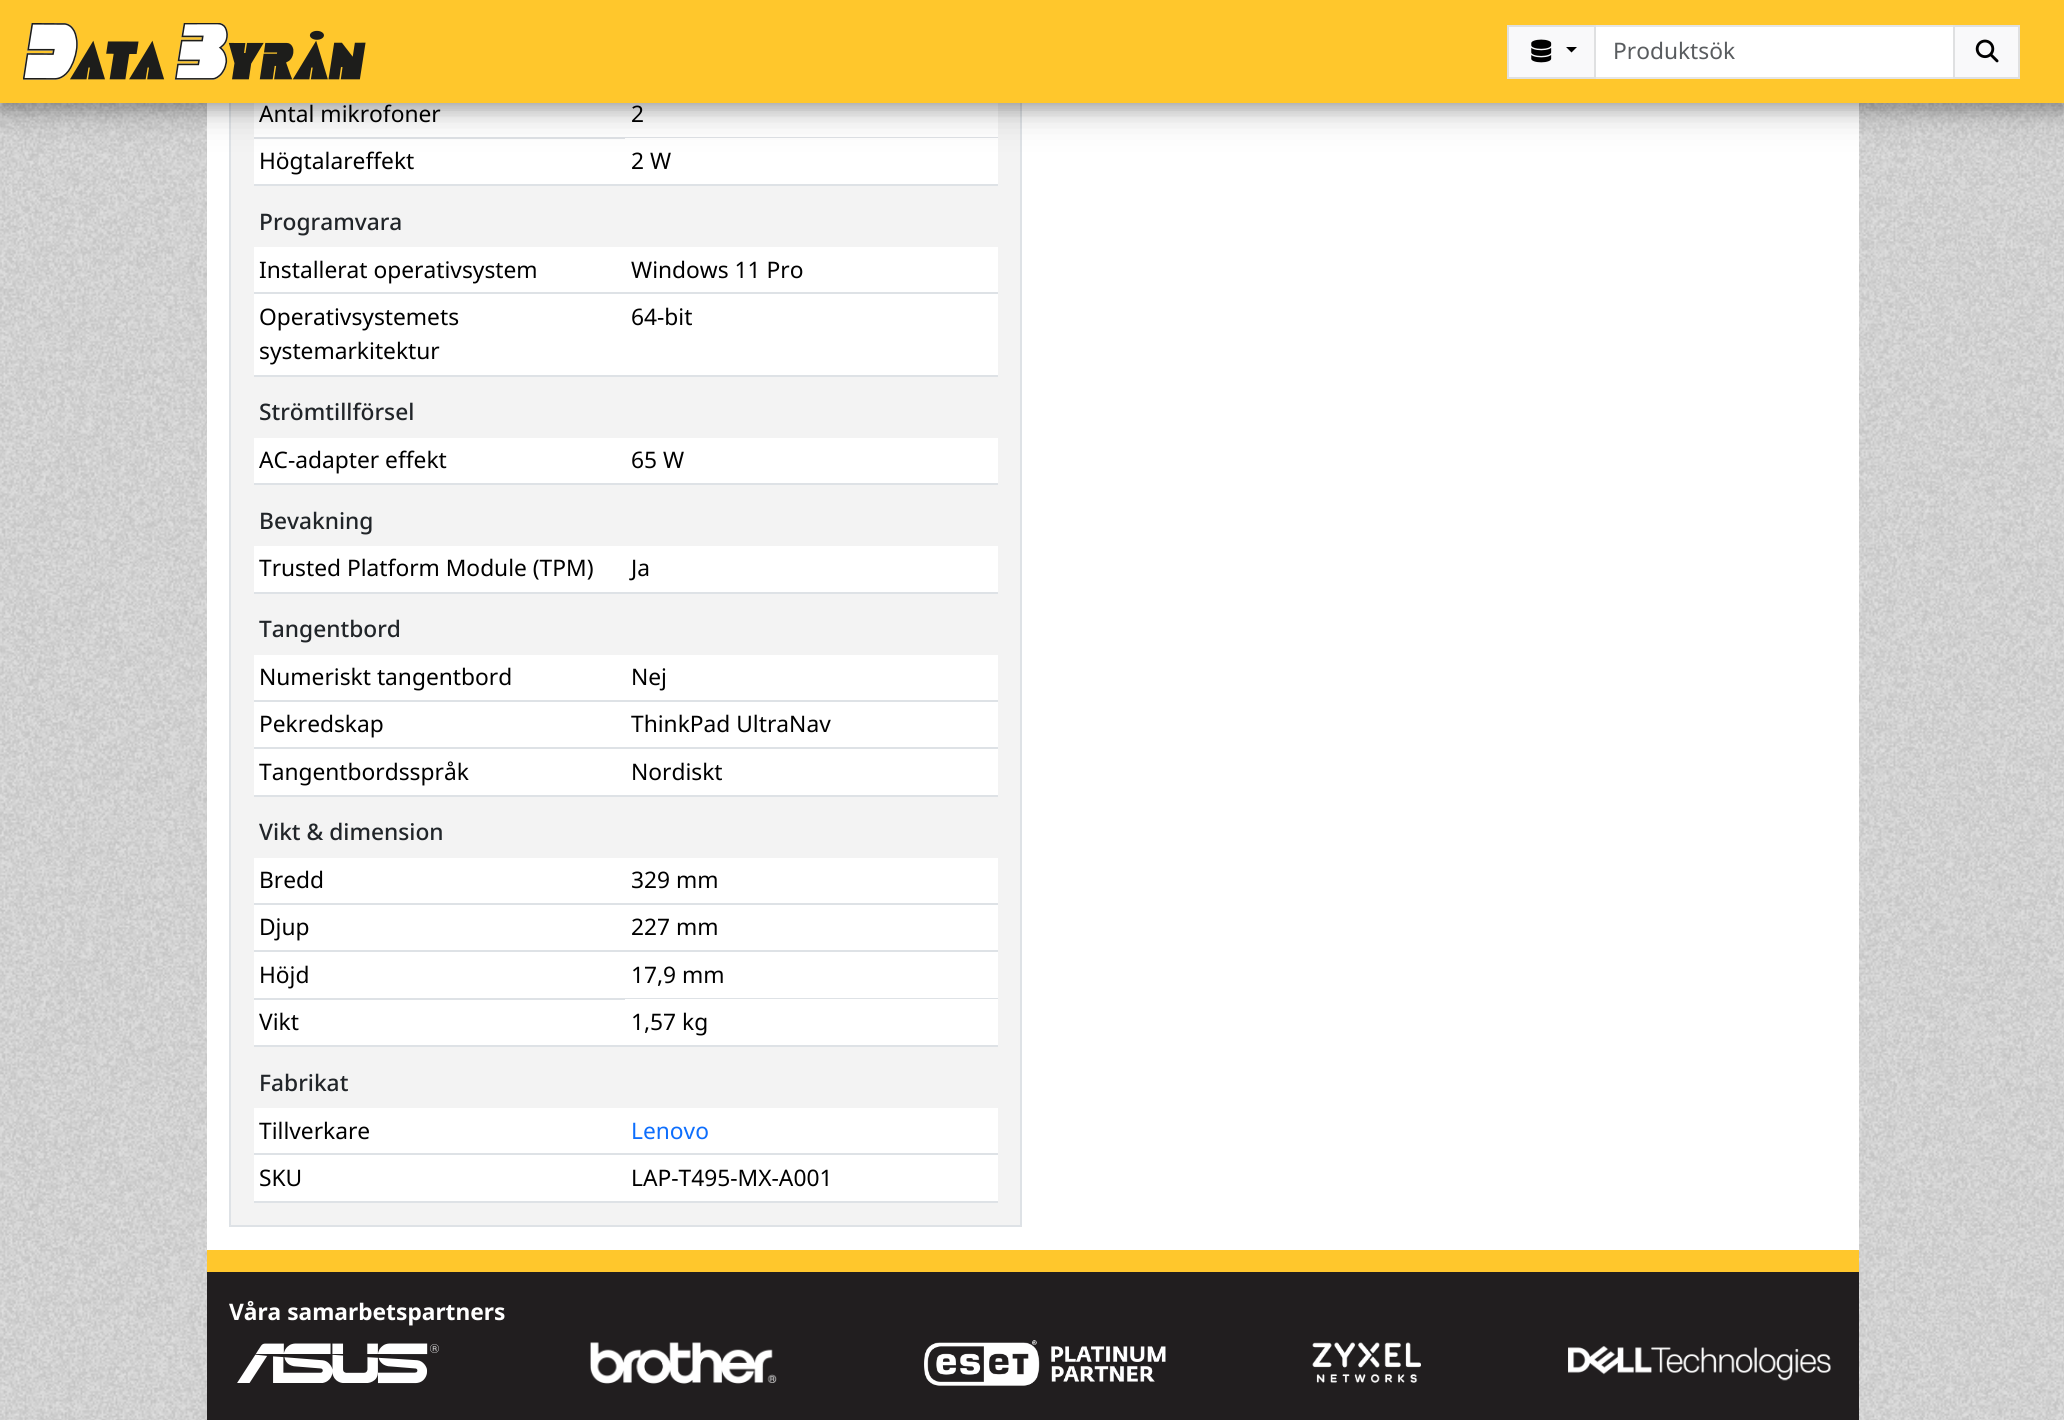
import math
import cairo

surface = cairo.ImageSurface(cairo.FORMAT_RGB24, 2064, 1420)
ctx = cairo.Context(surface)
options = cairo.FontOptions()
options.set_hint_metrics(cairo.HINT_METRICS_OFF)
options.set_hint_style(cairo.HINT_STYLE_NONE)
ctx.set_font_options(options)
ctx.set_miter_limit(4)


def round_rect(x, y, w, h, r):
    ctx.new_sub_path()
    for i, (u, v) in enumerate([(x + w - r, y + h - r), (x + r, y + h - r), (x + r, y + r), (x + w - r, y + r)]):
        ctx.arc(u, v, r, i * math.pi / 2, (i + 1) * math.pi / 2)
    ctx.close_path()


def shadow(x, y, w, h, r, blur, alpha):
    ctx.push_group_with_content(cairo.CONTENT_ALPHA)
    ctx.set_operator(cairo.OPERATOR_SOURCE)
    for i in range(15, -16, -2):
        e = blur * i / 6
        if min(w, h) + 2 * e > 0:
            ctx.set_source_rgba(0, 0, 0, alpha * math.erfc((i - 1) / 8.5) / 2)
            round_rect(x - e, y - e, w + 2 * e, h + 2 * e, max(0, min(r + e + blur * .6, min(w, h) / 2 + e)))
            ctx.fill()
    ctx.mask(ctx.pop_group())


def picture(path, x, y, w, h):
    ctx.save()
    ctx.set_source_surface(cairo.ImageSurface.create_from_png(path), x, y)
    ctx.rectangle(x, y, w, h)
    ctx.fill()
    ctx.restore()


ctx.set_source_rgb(1, 1, 1)
ctx.paint()
picture("img1.png", 0, 103, 2064, 1317)
ctx.set_source_rgb(1, 1, 1)
ctx.rectangle(207, 103, 1652, 1147)
ctx.fill()
ctx.rectangle(230, -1, 791, 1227)
ctx.set_source_rgb(0.871, 0.886, 0.902)
ctx.stroke()
ctx.set_source_rgb(0.953, 0.953, 0.953)
ctx.rectangle(231, 103, 789, 1122)
ctx.fill()
ctx.set_source_rgb(1, 1, 1)
ctx.rectangle(254, 103, 744, 34)
ctx.fill()
ctx.set_source_rgb(0.871, 0.886, 0.902)
ctx.rectangle(625, 137, 373, 1)
ctx.fill()
ctx.rectangle(254, 137, 373, 2)
ctx.fill()
ctx.set_source_rgb(1, 1, 1)
ctx.rectangle(254, 139, 371, 45)
ctx.fill()
ctx.rectangle(625, 138, 373, 46)
ctx.fill()
ctx.set_source_rgb(0, 0, 0)
shadow(0, 11, 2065, 103, 0, 17.5, 0.19)
shadow(0, 7, 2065, 103, 0, 7, 0.2)
ctx.set_source_rgb(1, 0.78, 0.173)
ctx.rectangle(0, 0, 2064, 103)
ctx.fill()
picture("img2.png", 23, 23, 343, 57)
ctx.set_source_rgb(1, 1, 1)
ctx.rectangle(1595, 26, 359, 52)
ctx.fill_preserve()
ctx.set_source_rgb(0.902, 0.902, 0.902)
ctx.stroke()
ctx.set_source_rgb(0.973, 0.976, 0.98)
ctx.rectangle(1508, 26, 87, 52)
ctx.fill_preserve()
ctx.set_source_rgb(0.875, 0.878, 0.882)
ctx.stroke()
picture("img3.png", 1531, 39, 21, 24)
ctx.set_source_rgb(0, 0, 0)
ctx.new_path()
ctx.move_to(1566, 47)
ctx.line_to(1577, 47)
ctx.line_to(1571.5, 52.5)
ctx.close_path()
ctx.fill()
ctx.select_font_face("Noto Sans")
ctx.set_font_size(22.75)
ctx.set_source_rgb(0.349, 0.361, 0.373)
ctx.move_to(1613, 59)
ctx.show_text("Produktsök")
ctx.set_source_rgb(0.973, 0.976, 0.98)
ctx.rectangle(1954, 26, 65, 52)
ctx.fill_preserve()
ctx.set_source_rgb(0.875, 0.878, 0.882)
ctx.stroke()
picture("img4.png", 1975, 39, 24, 24)
ctx.set_source_rgb(0, 0, 0)
ctx.move_to(259, 122)
ctx.show_text("Antal mikrofoner")
ctx.move_to(631, 122)
ctx.show_text("2")
ctx.move_to(259, 169)
ctx.show_text("Högtalareffekt")
ctx.set_source_rgb(0.871, 0.886, 0.902)
ctx.rectangle(254, 184, 744, 2)
ctx.fill()
ctx.set_source_rgb(0, 0, 0)
ctx.move_to(631, 169)
ctx.show_text("2 W")
ctx.select_font_face("Noto Sans Medium")
ctx.set_source_rgb(0.129, 0.145, 0.161)
ctx.move_to(259, 230)
ctx.show_text("Programvara")
ctx.set_source_rgb(1, 1, 1)
ctx.rectangle(254, 247, 744, 45)
ctx.fill()
ctx.select_font_face("Noto Sans")
ctx.set_source_rgb(0, 0, 0)
ctx.move_to(259, 278)
ctx.show_text("Installerat operativsystem")
ctx.set_source_rgb(0.871, 0.886, 0.902)
ctx.rectangle(254, 292, 744, 2)
ctx.fill()
ctx.set_source_rgb(0, 0, 0)
ctx.move_to(631, 278)
ctx.show_text("Windows 11 Pro")
ctx.set_source_rgb(1, 1, 1)
ctx.rectangle(254, 294, 744, 81)
ctx.fill()
ctx.set_source_rgb(0, 0, 0)
ctx.move_to(259, 325)
ctx.show_text("Operativsystemets")
ctx.move_to(259, 359)
ctx.show_text("systemarkitektur")
ctx.set_source_rgb(0.871, 0.886, 0.902)
ctx.rectangle(254, 375, 744, 2)
ctx.fill()
ctx.set_source_rgb(0, 0, 0)
ctx.move_to(631, 325)
ctx.show_text("64-bit")
ctx.select_font_face("Noto Sans Medium")
ctx.set_source_rgb(0.129, 0.145, 0.161)
ctx.move_to(259, 420)
ctx.show_text("Strömtillförsel")
ctx.set_source_rgb(1, 1, 1)
ctx.rectangle(254, 438, 744, 45)
ctx.fill()
ctx.select_font_face("Noto Sans")
ctx.set_source_rgb(0, 0, 0)
ctx.move_to(259, 468)
ctx.show_text("AC-adapter effekt")
ctx.set_source_rgb(0.871, 0.886, 0.902)
ctx.rectangle(254, 483, 744, 2)
ctx.fill()
ctx.set_source_rgb(0, 0, 0)
ctx.move_to(631, 468)
ctx.show_text("65 W")
ctx.select_font_face("Noto Sans Medium")
ctx.set_source_rgb(0.129, 0.145, 0.161)
ctx.move_to(259, 529)
ctx.show_text("Bevakning")
ctx.set_source_rgb(1, 1, 1)
ctx.rectangle(254, 546, 744, 46)
ctx.fill()
ctx.select_font_face("Noto Sans")
ctx.set_source_rgb(0, 0, 0)
ctx.move_to(259, 576)
ctx.show_text("Trusted Platform Module (TPM)")
ctx.set_source_rgb(0.871, 0.886, 0.902)
ctx.rectangle(254, 592, 744, 2)
ctx.fill()
ctx.set_source_rgb(0, 0, 0)
ctx.move_to(631, 576)
ctx.show_text("Ja")
ctx.select_font_face("Noto Sans Medium")
ctx.set_source_rgb(0.129, 0.145, 0.161)
ctx.move_to(259, 637)
ctx.show_text("Tangentbord")
ctx.set_source_rgb(1, 1, 1)
ctx.rectangle(254, 655, 744, 45)
ctx.fill()
ctx.select_font_face("Noto Sans")
ctx.set_source_rgb(0, 0, 0)
ctx.move_to(259, 685)
ctx.show_text("Numeriskt tangentbord")
ctx.set_source_rgb(0.871, 0.886, 0.902)
ctx.rectangle(254, 700, 744, 2)
ctx.fill()
ctx.set_source_rgb(0, 0, 0)
ctx.move_to(631, 685)
ctx.show_text("Nej")
ctx.set_source_rgb(1, 1, 1)
ctx.rectangle(254, 702, 744, 45)
ctx.fill()
ctx.set_source_rgb(0, 0, 0)
ctx.move_to(259, 732)
ctx.show_text("Pekredskap")
ctx.set_source_rgb(0.871, 0.886, 0.902)
ctx.rectangle(254, 747, 744, 2)
ctx.fill()
ctx.set_source_rgb(0, 0, 0)
ctx.move_to(631, 732)
ctx.show_text("ThinkPad UltraNav")
ctx.set_source_rgb(1, 1, 1)
ctx.rectangle(254, 749, 744, 46)
ctx.fill()
ctx.set_source_rgb(0, 0, 0)
ctx.move_to(259, 780)
ctx.show_text("Tangentbordsspråk")
ctx.set_source_rgb(0.871, 0.886, 0.902)
ctx.rectangle(254, 795, 744, 2)
ctx.fill()
ctx.set_source_rgb(0, 0, 0)
ctx.move_to(631, 780)
ctx.show_text("Nordiskt")
ctx.select_font_face("Noto Sans Medium")
ctx.set_source_rgb(0.129, 0.145, 0.161)
ctx.move_to(259, 840)
ctx.show_text("Vikt & dimension")
ctx.set_source_rgb(1, 1, 1)
ctx.rectangle(254, 858, 744, 45)
ctx.fill()
ctx.select_font_face("Noto Sans")
ctx.set_source_rgb(0, 0, 0)
ctx.move_to(259, 888)
ctx.show_text("Bredd")
ctx.set_source_rgb(0.871, 0.886, 0.902)
ctx.rectangle(254, 903, 744, 2)
ctx.fill()
ctx.set_source_rgb(0, 0, 0)
ctx.move_to(631, 888)
ctx.show_text("329 mm")
ctx.set_source_rgb(1, 1, 1)
ctx.rectangle(254, 905, 744, 45)
ctx.fill()
ctx.set_source_rgb(0, 0, 0)
ctx.move_to(259, 935)
ctx.show_text("Djup")
ctx.set_source_rgb(0.871, 0.886, 0.902)
ctx.rectangle(254, 950, 744, 2)
ctx.fill()
ctx.set_source_rgb(0, 0, 0)
ctx.move_to(631, 935)
ctx.show_text("227 mm")
ctx.set_source_rgb(1, 1, 1)
ctx.rectangle(254, 952, 744, 46)
ctx.fill()
ctx.set_source_rgb(0.871, 0.886, 0.902)
ctx.rectangle(625, 998, 373, 1)
ctx.fill()
ctx.rectangle(254, 998, 373, 2)
ctx.fill()
ctx.set_source_rgb(0, 0, 0)
ctx.move_to(259, 983)
ctx.show_text("Höjd")
ctx.move_to(631, 983)
ctx.show_text("17,9 mm")
ctx.set_source_rgb(1, 1, 1)
ctx.rectangle(254, 1000, 371, 45)
ctx.fill()
ctx.set_source_rgb(0, 0, 0)
ctx.move_to(259, 1030)
ctx.show_text("Vikt")
ctx.set_source_rgb(0.871, 0.886, 0.902)
ctx.rectangle(254, 1045, 744, 2)
ctx.fill()
ctx.set_source_rgb(1, 1, 1)
ctx.rectangle(625, 999, 373, 46)
ctx.fill()
ctx.set_source_rgb(0, 0, 0)
ctx.move_to(631, 1030)
ctx.show_text("1,57 kg")
ctx.select_font_face("Noto Sans Medium")
ctx.set_source_rgb(0.129, 0.145, 0.161)
ctx.move_to(259, 1091)
ctx.show_text("Fabrikat")
ctx.set_source_rgb(1, 1, 1)
ctx.rectangle(254, 1108, 744, 45)
ctx.fill()
ctx.select_font_face("Noto Sans")
ctx.set_source_rgb(0, 0, 0)
ctx.move_to(259, 1139)
ctx.show_text("Tillverkare")
ctx.set_source_rgb(0.871, 0.886, 0.902)
ctx.rectangle(254, 1153, 744, 2)
ctx.fill()
ctx.set_source_rgb(0.051, 0.431, 0.992)
ctx.move_to(631, 1139)
ctx.show_text("Lenovo")
ctx.set_source_rgb(1, 1, 1)
ctx.rectangle(254, 1155, 744, 46)
ctx.fill()
ctx.set_source_rgb(0, 0, 0)
ctx.move_to(259, 1186)
ctx.show_text("SKU")
ctx.set_source_rgb(0.871, 0.886, 0.902)
ctx.rectangle(254, 1201, 744, 2)
ctx.fill()
ctx.set_source_rgb(0, 0, 0)
ctx.move_to(631, 1186)
ctx.show_text("LAP-T495-MX-A001")
ctx.set_source_rgb(1, 0.78, 0.173)
ctx.rectangle(207, 1250, 1652, 22)
ctx.fill()
ctx.set_source_rgb(0.129, 0.118, 0.122)
ctx.rectangle(207, 1272, 1652, 148)
ctx.fill()
ctx.select_font_face("Noto Sans", cairo.FONT_SLANT_NORMAL, cairo.FONT_WEIGHT_BOLD)
ctx.set_source_rgb(1, 1, 1)
ctx.move_to(229, 1320)
ctx.show_text("Våra samarbetspartners")
picture("img5.png", 237, 1343, 202, 41)
picture("img6.png", 590, 1342, 187, 42)
picture("img7.png", 924, 1340, 242, 46)
picture("img8.png", 1312, 1342, 109, 41)
picture("img9.png", 1568, 1346, 263, 35)
surface.write_to_png("page.png")
